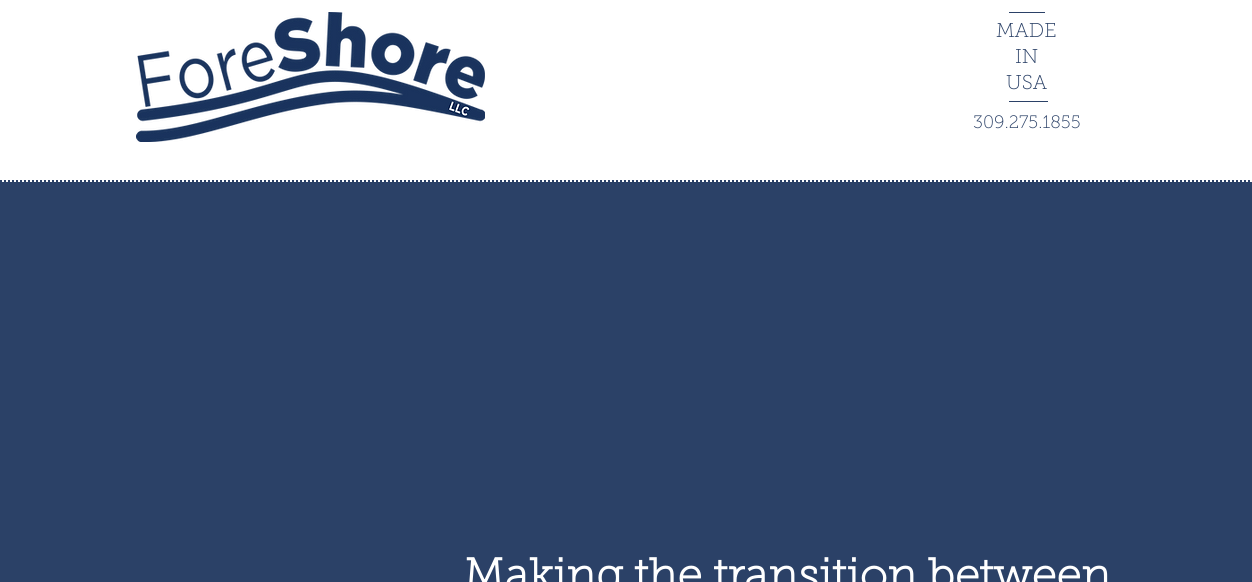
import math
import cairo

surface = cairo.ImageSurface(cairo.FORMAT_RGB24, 1252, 582)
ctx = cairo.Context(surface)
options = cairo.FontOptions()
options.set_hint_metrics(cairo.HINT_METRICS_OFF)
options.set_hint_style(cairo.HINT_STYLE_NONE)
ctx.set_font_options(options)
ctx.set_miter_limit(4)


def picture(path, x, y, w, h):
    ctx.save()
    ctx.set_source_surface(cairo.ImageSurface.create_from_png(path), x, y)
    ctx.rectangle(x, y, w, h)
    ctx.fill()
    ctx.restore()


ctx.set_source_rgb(0.169, 0.255, 0.404)
ctx.paint()
ctx.set_source_rgb(1, 1, 1)
ctx.rectangle(0, 0, 1252, 180)
ctx.fill()
picture("img1.png", 136, 12, 349, 130)
ctx.set_source_rgb(0.169, 0.255, 0.404)
ctx.rectangle(1009, 12, 36, 1)
ctx.fill()
ctx.select_font_face("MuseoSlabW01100 Thin")
ctx.set_font_size(20)
ctx.move_to(996, 37)
ctx.show_text("MADE")
ctx.move_to(1015, 63)
ctx.show_text("IN")
ctx.move_to(1006, 89)
ctx.show_text("USA")
ctx.rectangle(1009, 101, 39, 1)
ctx.fill()
ctx.set_font_size(18)
ctx.move_to(973, 128)
ctx.show_text("309.275.1855")
ctx.new_path()
ctx.move_to(-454, 181)
ctx.line_to(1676, 181)
ctx.set_source_rgb(1, 1, 1)
ctx.set_dash([2, 2])
ctx.stroke()
ctx.select_font_face("MuseoSlabW01100", cairo.FONT_SLANT_NORMAL, cairo.FONT_WEIGHT_BOLD)
ctx.set_font_size(45)
ctx.move_to(463, 590)
ctx.show_text("Making the transition between")
surface.write_to_png("page.png")
